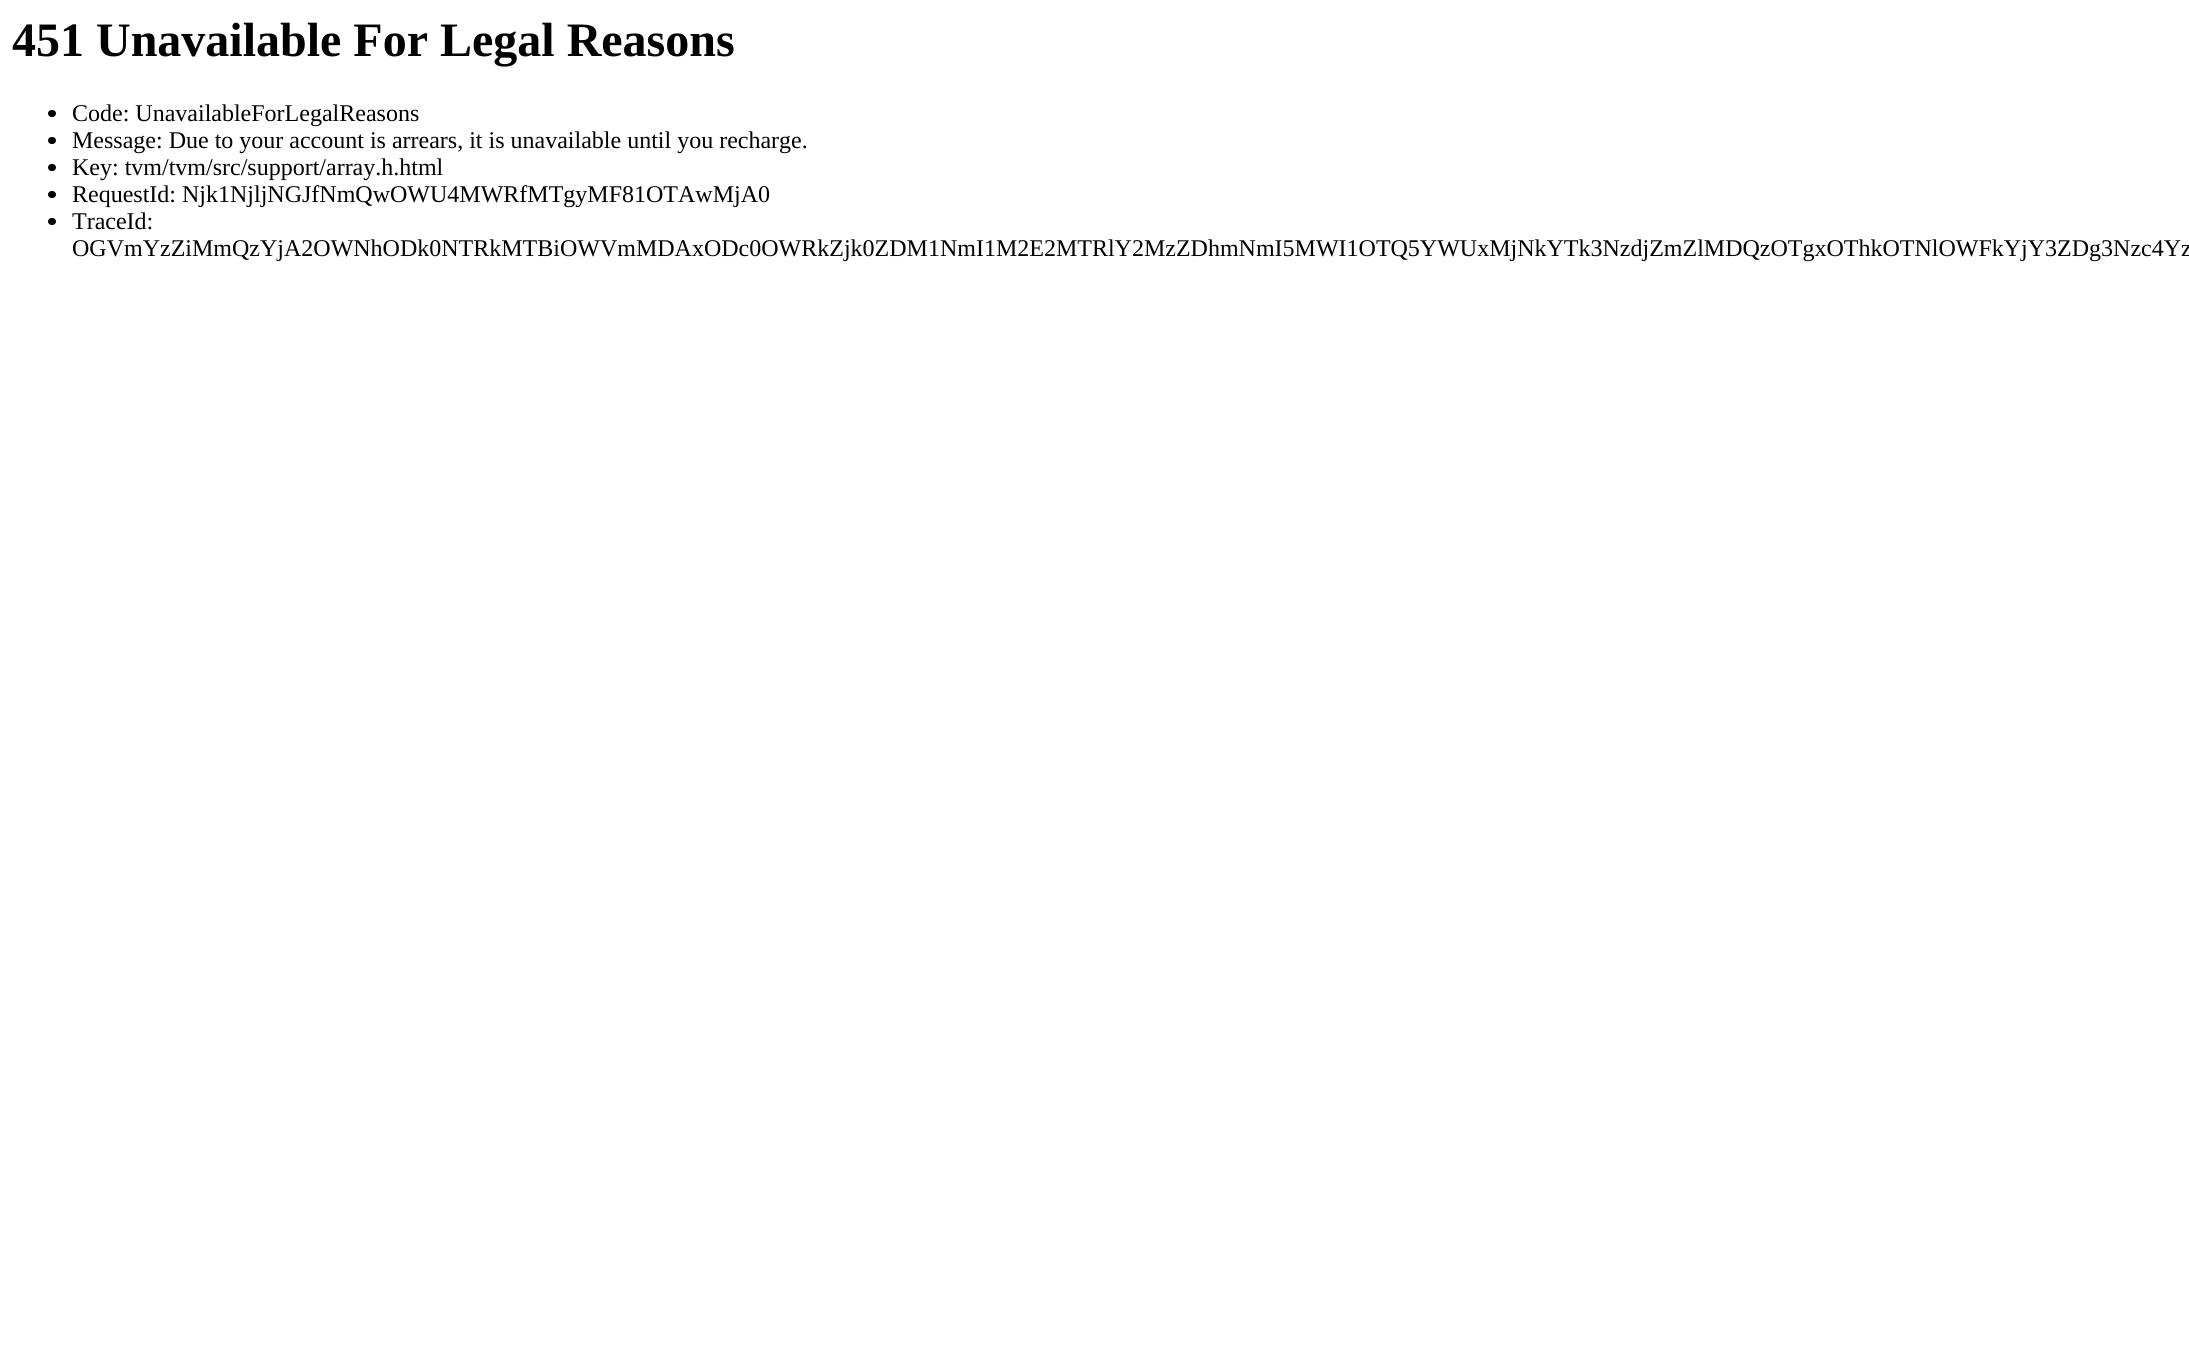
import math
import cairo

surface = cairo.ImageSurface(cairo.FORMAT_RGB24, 2189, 1357)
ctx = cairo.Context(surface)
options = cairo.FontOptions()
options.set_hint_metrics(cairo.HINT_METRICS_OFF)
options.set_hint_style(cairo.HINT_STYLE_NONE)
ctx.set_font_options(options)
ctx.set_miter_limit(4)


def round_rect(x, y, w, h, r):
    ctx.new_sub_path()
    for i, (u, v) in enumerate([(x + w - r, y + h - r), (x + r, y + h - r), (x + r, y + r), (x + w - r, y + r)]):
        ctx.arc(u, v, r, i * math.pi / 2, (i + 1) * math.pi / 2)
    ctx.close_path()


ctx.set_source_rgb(1, 1, 1)
ctx.paint()
ctx.select_font_face("Liberation Serif", cairo.FONT_SLANT_NORMAL, cairo.FONT_WEIGHT_BOLD)
ctx.set_font_size(48)
ctx.set_source_rgb(0, 0, 0)
ctx.move_to(12, 56)
ctx.show_text("451 Unavailable For Legal Reasons")
round_rect(48, 110, 8, 7, 3.5)
ctx.fill()
ctx.select_font_face("Liberation Serif")
ctx.set_font_size(24)
ctx.move_to(72, 121)
ctx.show_text("Code: UnavailableForLegalReasons")
round_rect(48, 137, 8, 7, 3.5)
ctx.fill()
ctx.move_to(72, 148)
ctx.show_text("Message: Due to your account is arrears, it is unavailable until you recharge.")
round_rect(48, 164, 8, 7, 3.5)
ctx.fill()
ctx.move_to(72, 175)
ctx.show_text("Key: tvm/tvm/src/support/array.h.html")
round_rect(48, 191, 8, 7, 3.5)
ctx.fill()
ctx.move_to(72, 202)
ctx.show_text("RequestId: Njk1NjljNGJfNmQwOWU4MWRfMTgyMF81OTAwMjA0")
round_rect(48, 218, 8, 7, 3.5)
ctx.fill()
ctx.move_to(72, 229)
ctx.show_text("TraceId:")
ctx.move_to(72, 256)
ctx.show_text("OGVmYzZiMmQzYjA2OWNhODk0NTRkMTBiOWVmMDAxODc0OWRkZjk0ZDM1NmI1M2E2MTRlY2MzZDhmNmI5MWI1OTQ5YWUxMjNkYTk3NzdjZmZlMDQzOTgxOThkOTNlOWFkYjY3ZDg3Nzc4Yz")
surface.write_to_png("page.png")
